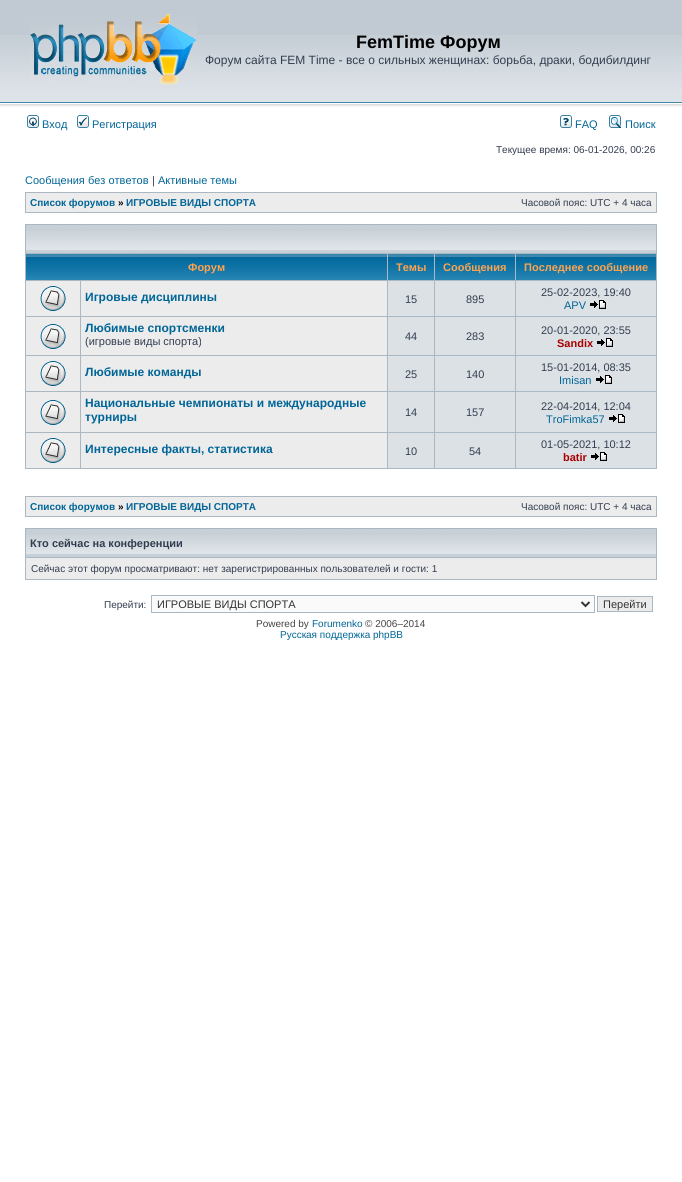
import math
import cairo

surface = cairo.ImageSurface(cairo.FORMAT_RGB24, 682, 1182)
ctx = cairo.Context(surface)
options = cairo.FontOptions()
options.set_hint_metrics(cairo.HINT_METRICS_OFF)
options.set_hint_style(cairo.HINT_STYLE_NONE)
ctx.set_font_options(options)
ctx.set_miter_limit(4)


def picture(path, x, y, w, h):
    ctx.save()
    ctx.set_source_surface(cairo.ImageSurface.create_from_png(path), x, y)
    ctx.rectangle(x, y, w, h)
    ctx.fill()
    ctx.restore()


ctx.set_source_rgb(1, 1, 1)
ctx.paint()
ctx.set_source_rgb(0.757, 0.792, 0.824)
ctx.rectangle(0, 0, 682, 35)
ctx.fill()
picture("img1.png", 0, 35, 682, 78)
picture("img2.png", 30, 14, 167, 71)
ctx.select_font_face("Liberation Sans", cairo.FONT_SLANT_NORMAL, cairo.FONT_WEIGHT_BOLD)
ctx.set_font_size(18)
ctx.set_source_rgb(0, 0, 0)
ctx.move_to(356, 48)
ctx.show_text("FemTime Форум")
ctx.select_font_face("Liberation Sans")
ctx.set_font_size(12)
ctx.set_source_rgb(0.196, 0.239, 0.31)
ctx.move_to(205, 64)
ctx.show_text("Форум сайта FEM Time - все о сильных женщинах: борьба, драки, бодибилдинг")
picture("img3.png", 27, 115, 12, 13)
ctx.set_font_size(11)
ctx.set_source_rgb(0, 0.396, 0.592)
ctx.move_to(42, 128)
ctx.show_text("Вход")
picture("img4.png", 77, 115, 12, 13)
ctx.move_to(92, 128)
ctx.show_text("Регистрация")
picture("img5.png", 560, 115, 12, 13)
ctx.move_to(575, 128)
ctx.show_text("FAQ")
picture("img6.png", 609, 115, 12, 13)
ctx.move_to(625, 128)
ctx.show_text("Поиск")
ctx.set_font_size(10)
ctx.set_source_rgb(0.196, 0.239, 0.31)
ctx.move_to(496, 153)
ctx.show_text("Текущее время: 06-01-2026, 00:26")
ctx.set_font_size(11)
ctx.set_source_rgb(0, 0.396, 0.592)
ctx.move_to(25, 184)
ctx.show_text("Сообщения без ответов")
ctx.set_source_rgb(0.196, 0.239, 0.31)
ctx.move_to(152, 184)
ctx.show_text("|")
ctx.set_source_rgb(0, 0.396, 0.592)
ctx.move_to(158, 184)
ctx.show_text("Активные темы")
ctx.set_source_rgb(0.663, 0.722, 0.761)
ctx.rectangle(25, 192, 632, 21)
ctx.fill()
ctx.set_source_rgb(0.925, 0.925, 0.925)
ctx.rectangle(26, 193, 630, 19)
ctx.fill()
ctx.select_font_face("Liberation Sans", cairo.FONT_SLANT_NORMAL, cairo.FONT_WEIGHT_BOLD)
ctx.set_font_size(10)
ctx.set_source_rgb(0, 0.396, 0.592)
ctx.move_to(30, 206)
ctx.show_text("Список форумов")
ctx.set_source_rgb(0, 0, 0)
ctx.move_to(118, 206)
ctx.show_text("»")
ctx.set_source_rgb(0, 0.396, 0.592)
ctx.move_to(126, 206)
ctx.show_text("ИГРОВЫЕ ВИДЫ СПОРТА")
ctx.select_font_face("Liberation Sans")
ctx.set_source_rgb(0.196, 0.239, 0.31)
ctx.move_to(521, 206)
ctx.show_text("Часовой пояс: UTC + 4 часа")
ctx.set_source_rgb(0.663, 0.722, 0.761)
ctx.rectangle(25, 224, 632, 245)
ctx.fill()
ctx.set_source_rgb(0.78, 0.816, 0.843)
ctx.rectangle(26, 225, 630, 28)
ctx.fill()
picture("img7.png", 26, 231, 630, 19)
picture("img8.png", 26, 254, 361, 26)
ctx.select_font_face("Liberation Sans", cairo.FONT_SLANT_NORMAL, cairo.FONT_WEIGHT_BOLD)
ctx.set_font_size(11)
ctx.set_source_rgb(1, 0.639, 0.31)
ctx.move_to(188, 271)
ctx.show_text("Форум")
picture("img9.png", 388, 254, 46, 26)
ctx.move_to(396, 271)
ctx.show_text("Темы")
picture("img10.png", 435, 254, 80, 26)
ctx.move_to(443, 271)
ctx.show_text("Сообщения")
picture("img11.png", 516, 254, 140, 26)
ctx.move_to(524, 271)
ctx.show_text("Последнее сообщение")
ctx.set_source_rgb(0.925, 0.925, 0.925)
ctx.rectangle(26, 281, 54, 35)
ctx.fill()
picture("img12.png", 40, 286, 26, 25)
ctx.rectangle(81, 281, 306, 35)
ctx.fill()
ctx.set_font_size(12)
ctx.set_source_rgb(0, 0.396, 0.592)
ctx.move_to(85, 301)
ctx.show_text("Игровые дисциплины")
ctx.set_source_rgb(0.863, 0.882, 0.898)
ctx.rectangle(388, 281, 46, 35)
ctx.fill()
ctx.select_font_face("Liberation Sans")
ctx.set_font_size(11)
ctx.set_source_rgb(0.196, 0.239, 0.31)
ctx.move_to(405, 303)
ctx.show_text("15")
ctx.set_source_rgb(0.863, 0.882, 0.898)
ctx.rectangle(435, 281, 80, 35)
ctx.fill()
ctx.set_source_rgb(0.196, 0.239, 0.31)
ctx.move_to(466, 303)
ctx.show_text("895")
ctx.set_source_rgb(0.863, 0.882, 0.898)
ctx.rectangle(516, 281, 140, 35)
ctx.fill()
ctx.set_source_rgb(0.196, 0.239, 0.31)
ctx.move_to(541, 296)
ctx.show_text("25-02-2023, 19:40")
ctx.set_source_rgb(0, 0.396, 0.592)
ctx.move_to(564, 309)
ctx.show_text("APV")
picture("img13.png", 590, 300, 16, 9)
ctx.set_source_rgb(0.925, 0.925, 0.925)
ctx.rectangle(26, 317, 54, 38)
ctx.fill()
picture("img12.png", 40, 324, 26, 25)
ctx.rectangle(81, 317, 306, 38)
ctx.fill()
ctx.select_font_face("Liberation Sans", cairo.FONT_SLANT_NORMAL, cairo.FONT_WEIGHT_BOLD)
ctx.set_font_size(12)
ctx.set_source_rgb(0, 0.396, 0.592)
ctx.move_to(85, 332)
ctx.show_text("Любимые спортсменки")
ctx.select_font_face("Liberation Sans")
ctx.set_font_size(11)
ctx.set_source_rgb(0.196, 0.239, 0.31)
ctx.move_to(85, 345)
ctx.show_text("(игровые виды спорта)")
ctx.set_source_rgb(0.863, 0.882, 0.898)
ctx.rectangle(388, 317, 46, 38)
ctx.fill()
ctx.set_source_rgb(0.196, 0.239, 0.31)
ctx.move_to(405, 340)
ctx.show_text("44")
ctx.set_source_rgb(0.863, 0.882, 0.898)
ctx.rectangle(435, 317, 80, 38)
ctx.fill()
ctx.set_source_rgb(0.196, 0.239, 0.31)
ctx.move_to(466, 340)
ctx.show_text("283")
ctx.set_source_rgb(0.863, 0.882, 0.898)
ctx.rectangle(516, 317, 140, 38)
ctx.fill()
ctx.set_source_rgb(0.196, 0.239, 0.31)
ctx.move_to(541, 334)
ctx.show_text("20-01-2020, 23:55")
ctx.select_font_face("Liberation Sans", cairo.FONT_SLANT_NORMAL, cairo.FONT_WEIGHT_BOLD)
ctx.set_source_rgb(0.667, 0, 0)
ctx.move_to(557, 347)
ctx.show_text("Sandix")
picture("img13.png", 597, 338, 16, 9)
ctx.set_source_rgb(0.925, 0.925, 0.925)
ctx.rectangle(26, 356, 54, 35)
ctx.fill()
picture("img12.png", 40, 361, 26, 25)
ctx.rectangle(81, 356, 306, 35)
ctx.fill()
ctx.set_font_size(12)
ctx.set_source_rgb(0, 0.396, 0.592)
ctx.move_to(85, 376)
ctx.show_text("Любимые команды")
ctx.set_source_rgb(0.863, 0.882, 0.898)
ctx.rectangle(388, 356, 46, 35)
ctx.fill()
ctx.select_font_face("Liberation Sans")
ctx.set_font_size(11)
ctx.set_source_rgb(0.196, 0.239, 0.31)
ctx.move_to(405, 378)
ctx.show_text("25")
ctx.set_source_rgb(0.863, 0.882, 0.898)
ctx.rectangle(435, 356, 80, 35)
ctx.fill()
ctx.set_source_rgb(0.196, 0.239, 0.31)
ctx.move_to(466, 378)
ctx.show_text("140")
ctx.set_source_rgb(0.863, 0.882, 0.898)
ctx.rectangle(516, 356, 140, 35)
ctx.fill()
ctx.set_source_rgb(0.196, 0.239, 0.31)
ctx.move_to(541, 371)
ctx.show_text("15-01-2014, 08:35")
ctx.set_source_rgb(0, 0.396, 0.592)
ctx.move_to(559, 384)
ctx.show_text("Imisan")
picture("img13.png", 596, 375, 16, 9)
ctx.set_source_rgb(0.925, 0.925, 0.925)
ctx.rectangle(26, 392, 54, 40)
ctx.fill()
picture("img12.png", 40, 400, 26, 25)
ctx.rectangle(81, 392, 306, 40)
ctx.fill()
ctx.select_font_face("Liberation Sans", cairo.FONT_SLANT_NORMAL, cairo.FONT_WEIGHT_BOLD)
ctx.set_font_size(12)
ctx.set_source_rgb(0, 0.396, 0.592)
ctx.move_to(85, 407)
ctx.show_text("Национальные чемпионаты и международные")
ctx.move_to(85, 421)
ctx.show_text("турниры")
ctx.set_source_rgb(0.863, 0.882, 0.898)
ctx.rectangle(388, 392, 46, 40)
ctx.fill()
ctx.select_font_face("Liberation Sans")
ctx.set_font_size(11)
ctx.set_source_rgb(0.196, 0.239, 0.31)
ctx.move_to(405, 416)
ctx.show_text("14")
ctx.set_source_rgb(0.863, 0.882, 0.898)
ctx.rectangle(435, 392, 80, 40)
ctx.fill()
ctx.set_source_rgb(0.196, 0.239, 0.31)
ctx.move_to(466, 416)
ctx.show_text("157")
ctx.set_source_rgb(0.863, 0.882, 0.898)
ctx.rectangle(516, 392, 140, 40)
ctx.fill()
ctx.set_source_rgb(0.196, 0.239, 0.31)
ctx.move_to(541, 410)
ctx.show_text("22-04-2014, 12:04")
ctx.set_source_rgb(0, 0.396, 0.592)
ctx.move_to(546, 423)
ctx.show_text("TroFimka57")
picture("img13.png", 609, 414, 16, 9)
ctx.set_source_rgb(0.925, 0.925, 0.925)
ctx.rectangle(26, 433, 54, 35)
ctx.fill()
picture("img12.png", 40, 438, 26, 25)
ctx.rectangle(81, 433, 306, 35)
ctx.fill()
ctx.select_font_face("Liberation Sans", cairo.FONT_SLANT_NORMAL, cairo.FONT_WEIGHT_BOLD)
ctx.set_font_size(12)
ctx.set_source_rgb(0, 0.396, 0.592)
ctx.move_to(85, 453)
ctx.show_text("Интересные факты, статистика")
ctx.set_source_rgb(0.863, 0.882, 0.898)
ctx.rectangle(388, 433, 46, 35)
ctx.fill()
ctx.select_font_face("Liberation Sans")
ctx.set_font_size(11)
ctx.set_source_rgb(0.196, 0.239, 0.31)
ctx.move_to(405, 455)
ctx.show_text("10")
ctx.set_source_rgb(0.863, 0.882, 0.898)
ctx.rectangle(435, 433, 80, 35)
ctx.fill()
ctx.set_source_rgb(0.196, 0.239, 0.31)
ctx.move_to(469, 455)
ctx.show_text("54")
ctx.set_source_rgb(0.863, 0.882, 0.898)
ctx.rectangle(516, 433, 140, 35)
ctx.fill()
ctx.set_source_rgb(0.196, 0.239, 0.31)
ctx.move_to(541, 448)
ctx.show_text("01-05-2021, 10:12")
ctx.select_font_face("Liberation Sans", cairo.FONT_SLANT_NORMAL, cairo.FONT_WEIGHT_BOLD)
ctx.set_source_rgb(0.667, 0, 0)
ctx.move_to(563, 461)
ctx.show_text("batir")
picture("img13.png", 591, 452, 16, 9)
ctx.set_source_rgb(0.663, 0.722, 0.761)
ctx.rectangle(25, 496, 632, 21)
ctx.fill()
ctx.set_source_rgb(0.925, 0.925, 0.925)
ctx.rectangle(26, 497, 630, 19)
ctx.fill()
ctx.set_font_size(10)
ctx.set_source_rgb(0, 0.396, 0.592)
ctx.move_to(30, 510)
ctx.show_text("Список форумов")
ctx.set_source_rgb(0, 0, 0)
ctx.move_to(118, 510)
ctx.show_text("»")
ctx.set_source_rgb(0, 0.396, 0.592)
ctx.move_to(126, 510)
ctx.show_text("ИГРОВЫЕ ВИДЫ СПОРТА")
ctx.select_font_face("Liberation Sans")
ctx.set_source_rgb(0.196, 0.239, 0.31)
ctx.move_to(521, 510)
ctx.show_text("Часовой пояс: UTC + 4 часа")
ctx.set_source_rgb(0.663, 0.722, 0.761)
ctx.rectangle(25, 528, 632, 52)
ctx.fill()
ctx.set_source_rgb(0.78, 0.816, 0.843)
ctx.rectangle(26, 529, 630, 28)
ctx.fill()
picture("img7.png", 26, 535, 630, 19)
ctx.select_font_face("Liberation Sans", cairo.FONT_SLANT_NORMAL, cairo.FONT_WEIGHT_BOLD)
ctx.set_font_size(11)
ctx.set_source_rgb(0.196, 0.239, 0.31)
ctx.move_to(30, 547)
ctx.show_text("Кто сейчас на конференции")
ctx.set_source_rgb(0.925, 0.925, 0.925)
ctx.rectangle(26, 558, 630, 21)
ctx.fill()
ctx.select_font_face("Liberation Sans")
ctx.set_font_size(10)
ctx.set_source_rgb(0.196, 0.239, 0.31)
ctx.move_to(31, 572)
ctx.show_text("Сейчас этот форум просматривают: нет зарегистрированных пользователей и гости: 1")
ctx.move_to(104, 608)
ctx.show_text("Перейти:")
ctx.set_source_rgb(0.98, 0.98, 0.98)
ctx.rectangle(151.5, 595.5, 443, 17)
ctx.fill_preserve()
ctx.set_source_rgb(0.663, 0.722, 0.761)
ctx.set_line_width(1)
ctx.stroke()
ctx.new_path()
ctx.move_to(581.5, 602)
ctx.line_to(585.5, 606)
ctx.line_to(589.5, 602)
ctx.set_source_rgb(0.2, 0.2, 0.2)
ctx.set_line_width(2)
ctx.stroke()
ctx.set_font_size(11)
ctx.move_to(157, 608)
ctx.show_text("ИГРОВЫЕ ВИДЫ СПОРТА")
ctx.set_source_rgb(0.925, 0.925, 0.925)
ctx.rectangle(597.5, 596.5, 55, 15)
ctx.fill_preserve()
ctx.set_source_rgb(0.663, 0.722, 0.761)
ctx.set_line_width(1)
ctx.stroke()
ctx.set_source_rgb(0.2, 0.2, 0.2)
ctx.move_to(603, 608)
ctx.show_text("Перейти")
ctx.set_font_size(10)
ctx.set_source_rgb(0.267, 0.267, 0.267)
ctx.move_to(256, 627)
ctx.show_text("Powered by")
ctx.set_source_rgb(0, 0.396, 0.592)
ctx.move_to(312, 627)
ctx.show_text("Forumenko")
ctx.set_source_rgb(0.267, 0.267, 0.267)
ctx.move_to(365, 627)
ctx.show_text("© 2006–2014")
ctx.set_source_rgb(0, 0.396, 0.592)
ctx.move_to(280, 638)
ctx.show_text("Русская поддержка phpBB")
surface.write_to_png("page.png")
